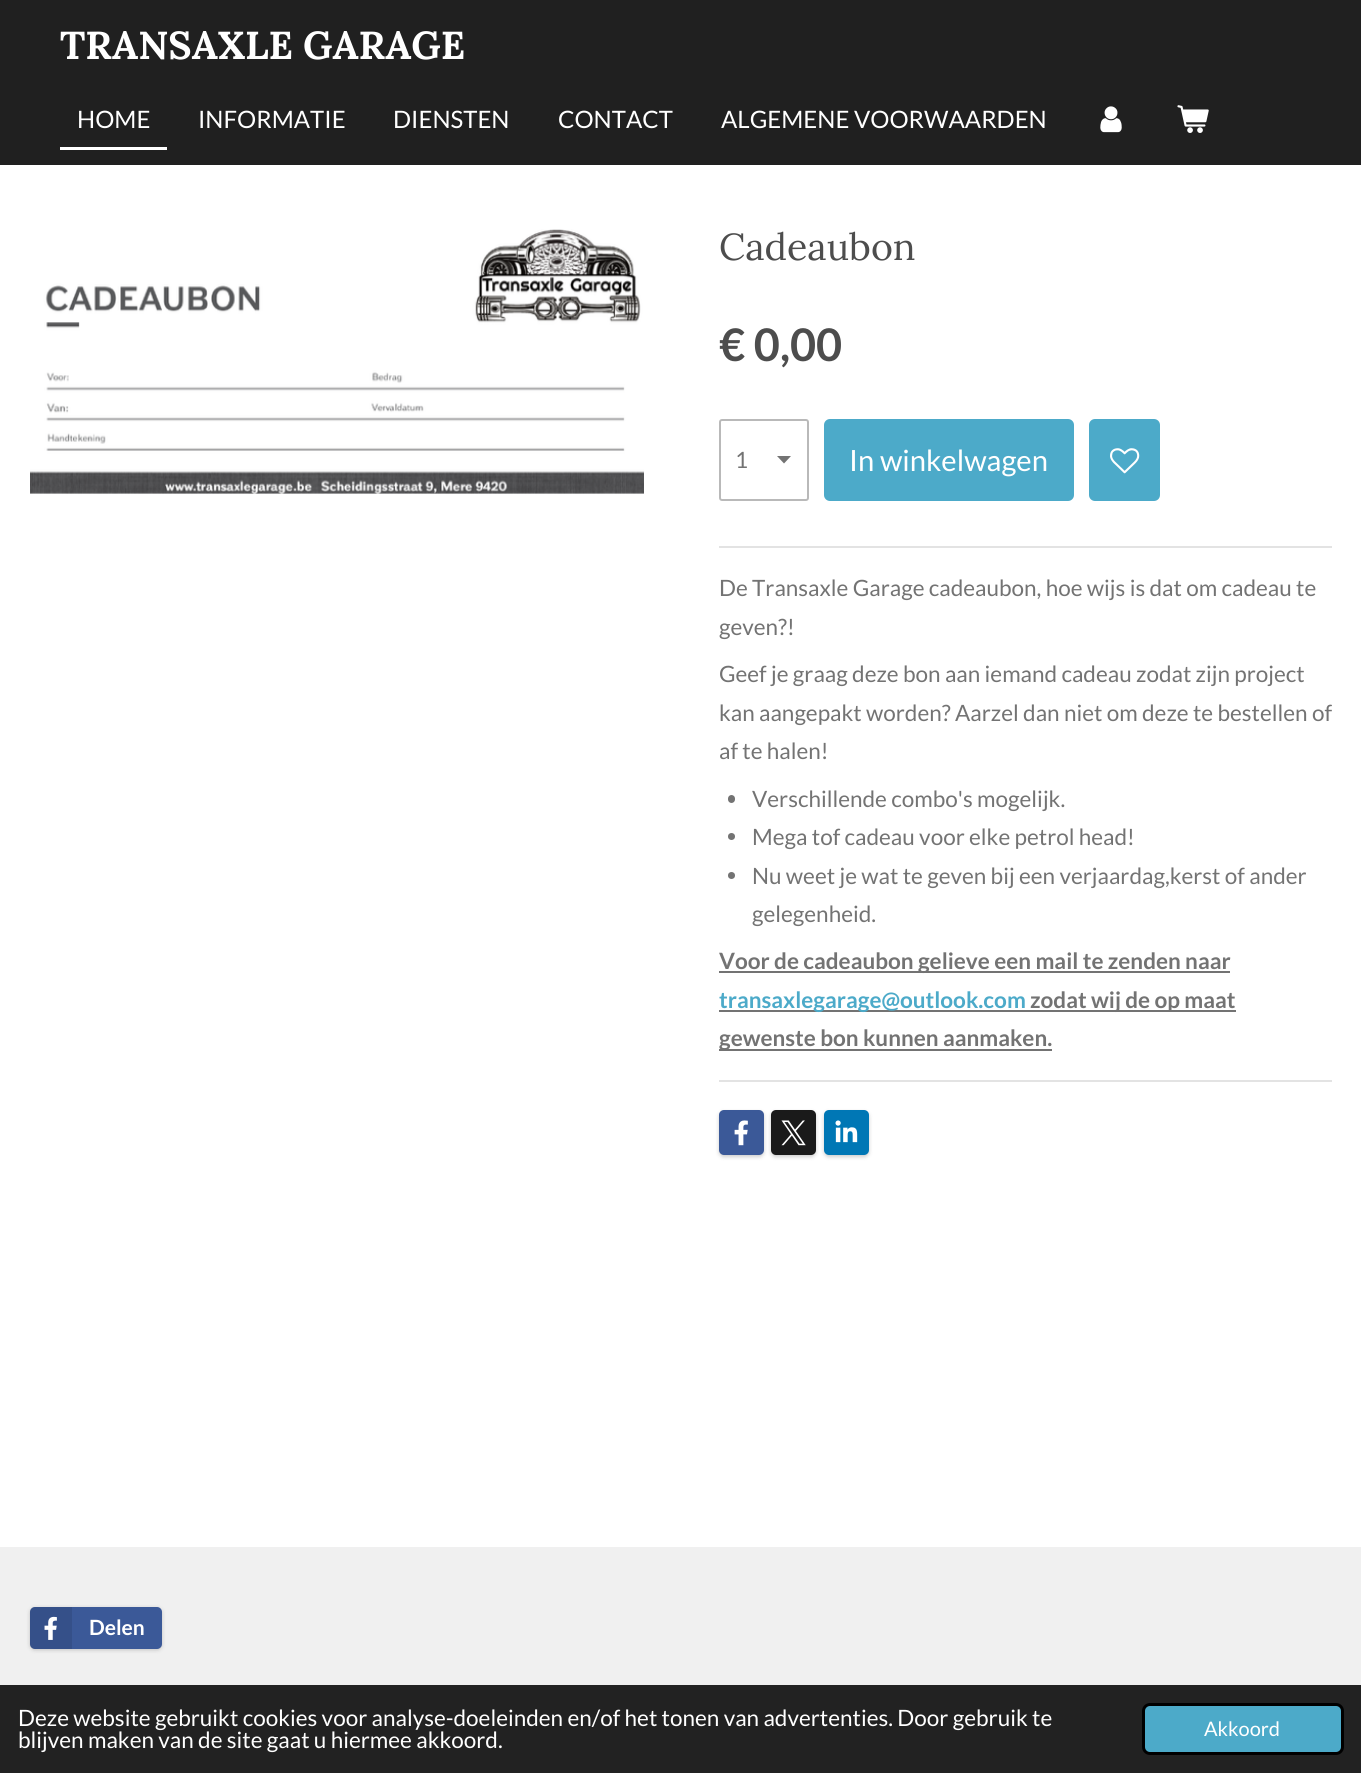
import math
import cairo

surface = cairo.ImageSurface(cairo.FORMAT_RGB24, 1361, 1773)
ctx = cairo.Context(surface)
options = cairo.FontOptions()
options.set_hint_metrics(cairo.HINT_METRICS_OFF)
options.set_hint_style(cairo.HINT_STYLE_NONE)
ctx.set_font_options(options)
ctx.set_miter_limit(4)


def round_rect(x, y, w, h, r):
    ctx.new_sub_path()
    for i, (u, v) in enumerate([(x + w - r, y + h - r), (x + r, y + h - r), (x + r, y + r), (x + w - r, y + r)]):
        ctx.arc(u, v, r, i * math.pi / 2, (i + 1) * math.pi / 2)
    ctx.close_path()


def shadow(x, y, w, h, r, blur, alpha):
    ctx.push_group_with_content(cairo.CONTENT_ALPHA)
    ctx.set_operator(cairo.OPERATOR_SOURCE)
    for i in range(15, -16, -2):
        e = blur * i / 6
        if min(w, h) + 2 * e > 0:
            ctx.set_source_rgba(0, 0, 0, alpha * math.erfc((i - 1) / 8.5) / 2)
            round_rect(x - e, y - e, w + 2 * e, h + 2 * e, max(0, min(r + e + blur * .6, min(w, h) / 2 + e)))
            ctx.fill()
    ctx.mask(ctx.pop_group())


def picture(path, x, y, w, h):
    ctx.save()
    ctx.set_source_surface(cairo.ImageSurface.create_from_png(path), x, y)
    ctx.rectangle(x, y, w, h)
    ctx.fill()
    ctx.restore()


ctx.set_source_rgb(1, 1, 1)
ctx.paint()
ctx.set_source_rgb(0.125, 0.125, 0.125)
ctx.rectangle(0, 0, 1361, 165)
ctx.fill()
ctx.select_font_face("Lora", cairo.FONT_SLANT_NORMAL, cairo.FONT_WEIGHT_BOLD)
ctx.set_font_size(39)
ctx.set_source_rgb(1, 1, 1)
ctx.move_to(60, 59)
ctx.show_text("TRANSAXLE GARAGE")
ctx.rectangle(60, 147, 107, 3)
ctx.fill()
ctx.select_font_face("Lato")
ctx.set_font_size(24)
ctx.move_to(77, 128)
ctx.show_text("HOME")
ctx.move_to(198, 128)
ctx.show_text("INFORMATIE")
ctx.move_to(393, 128)
ctx.show_text("DIENSTEN")
ctx.move_to(558, 128)
ctx.show_text("CONTACT")
ctx.move_to(721, 128)
ctx.show_text("ALGEMENE VOORWAARDEN")
picture("img1.png", 1100, 106, 22, 27)
picture("img2.png", 1177, 105, 32, 28)
picture("img3.png", 30, 229, 614, 265)
ctx.select_font_face("Lora")
ctx.set_font_size(37.5)
ctx.set_source_rgb(0.302, 0.302, 0.302)
ctx.move_to(719, 260)
ctx.show_text("Cadeaubon")
ctx.select_font_face("Lato", cairo.FONT_SLANT_NORMAL, cairo.FONT_WEIGHT_BOLD)
ctx.set_font_size(45)
ctx.move_to(719, 361)
ctx.show_text("€ 0,00")
ctx.set_source_rgb(0.451, 0.451, 0.451)
ctx.new_path()
ctx.move_to(784, 463.5)
ctx.line_to(777, 456)
ctx.line_to(791, 456)
ctx.close_path()
ctx.fill()
round_rect(720, 420, 88, 80, 2)
ctx.set_source_rgb(0.725, 0.725, 0.725)
ctx.stroke()
ctx.select_font_face("Lato")
ctx.set_font_size(22.5)
ctx.set_source_rgb(0.451, 0.451, 0.451)
ctx.move_to(735, 468)
ctx.show_text("1")
ctx.set_source_rgb(0.298, 0.667, 0.788)
round_rect(824, 419, 250, 82, 6)
ctx.fill()
ctx.set_font_size(29.25)
ctx.set_source_rgb(1, 1, 1)
ctx.move_to(849, 471)
ctx.show_text("In winkelwagen")
ctx.set_source_rgb(0.298, 0.667, 0.788)
round_rect(1089, 419, 71, 82, 6)
ctx.fill()
picture("img4.png", 1110, 448, 30, 26)
ctx.set_source_rgb(0.89, 0.89, 0.89)
ctx.rectangle(719, 546, 613, 2)
ctx.fill()
ctx.set_font_size(22.5)
ctx.set_source_rgb(0.451, 0.451, 0.451)
ctx.move_to(719, 596)
ctx.show_text("De Transaxle Garage cadeaubon, hoe wijs is dat om cadeau te")
ctx.move_to(719, 635)
ctx.show_text("geven?!")
ctx.move_to(719, 682)
ctx.show_text("Geef je graag deze bon aan iemand cadeau zodat zijn project")
ctx.move_to(719, 721)
ctx.show_text("kan aangepakt worden? Aarzel dan niet om deze te bestellen of")
ctx.move_to(719, 759)
ctx.show_text("af te halen!")
round_rect(728, 795, 7, 8, 3.5)
ctx.fill()
ctx.move_to(752, 807)
ctx.show_text("Verschillende combo's mogelijk.")
ctx.new_path()
ctx.arc(731.5, 836.5, 3.5, 0, 2 * math.pi)
ctx.fill()
ctx.move_to(752, 845)
ctx.show_text("Mega tof cadeau voor elke petrol head!")
ctx.new_path()
ctx.arc(731.5, 875.5, 3.5, 0, 2 * math.pi)
ctx.fill()
ctx.move_to(752, 884)
ctx.show_text("Nu weet je wat te geven bij een verjaardag,kerst of ander")
ctx.move_to(752, 922)
ctx.show_text("gelegenheid.")
ctx.rectangle(719, 971, 511, 2)
ctx.fill()
ctx.select_font_face("Lato", cairo.FONT_SLANT_NORMAL, cairo.FONT_WEIGHT_BOLD)
ctx.move_to(719, 969)
ctx.show_text("Voor de cadeaubon gelieve een mail te zenden naar")
ctx.rectangle(719, 1010, 517, 2)
ctx.fill()
ctx.set_source_rgb(0.298, 0.667, 0.788)
ctx.move_to(719, 1008)
ctx.show_text("transaxlegarage@outlook.com")
ctx.set_source_rgb(0.451, 0.451, 0.451)
ctx.move_to(1030, 1008)
ctx.show_text("zodat wij de op maat")
ctx.rectangle(719, 1049, 333, 2)
ctx.fill()
ctx.move_to(719, 1046)
ctx.show_text("gewenste bon kunnen aanmaken.")
ctx.set_source_rgb(0.89, 0.89, 0.89)
ctx.rectangle(719, 1080, 613, 2)
ctx.fill()
ctx.set_source_rgb(0, 0, 0)
shadow(719, 1112, 45, 45, 5, 2, 0.2)
ctx.set_source_rgb(0.231, 0.349, 0.596)
round_rect(719, 1110, 45, 45, 5)
ctx.fill()
picture("img5.png", 734, 1120, 14, 26)
ctx.set_source_rgb(0, 0, 0)
shadow(771, 1112, 45, 45, 5, 2, 0.2)
ctx.set_source_rgb(0.102, 0.102, 0.102)
round_rect(771, 1110, 45, 45, 5)
ctx.fill()
picture("img6.png", 781, 1120, 25, 26)
ctx.set_source_rgb(0, 0, 0)
shadow(824, 1112, 45, 45, 5, 2, 0.2)
ctx.set_source_rgb(0, 0.467, 0.71)
round_rect(824, 1110, 45, 45, 5)
ctx.fill()
picture("img7.png", 835, 1120, 23, 23)
ctx.set_source_rgb(0.941, 0.941, 0.941)
ctx.rectangle(0, 1547, 1361, 138)
ctx.fill()
ctx.set_source_rgb(0, 0, 0)
shadow(30, 1608, 132, 42, 5, 2, 0.2)
ctx.set_source_rgb(0.231, 0.349, 0.596)
round_rect(30, 1607, 132, 42, 5)
ctx.fill()
ctx.set_source_rgba(0, 0, 0, 0.1)
ctx.new_path()
ctx.move_to(35, 1607)
ctx.line_to(72, 1607)
ctx.line_to(72, 1649)
ctx.line_to(35, 1649)
ctx.curve_to(32, 1649, 30, 1647, 30, 1644)
ctx.line_to(30, 1612)
ctx.curve_to(30, 1609, 32, 1607, 35, 1607)
ctx.close_path()
ctx.fill()
picture("img8.png", 44, 1616, 13, 24)
ctx.set_font_size(21)
ctx.set_source_rgb(1, 1, 1)
ctx.move_to(89, 1635)
ctx.show_text("Delen")
ctx.set_source_rgb(0.133, 0.133, 0.133)
ctx.rectangle(0, 1685, 1361, 88)
ctx.fill()
ctx.select_font_face("Lato")
ctx.set_font_size(22.5)
ctx.set_source_rgb(1, 1, 1)
ctx.move_to(18, 1726)
ctx.show_text("Deze website gebruikt cookies voor analyse-doeleinden en/of het tonen van advertenties. Door gebruik te")
ctx.move_to(18, 1748)
ctx.show_text("blijven maken van de site gaat u hiermee akkoord.")
ctx.set_source_rgb(0.298, 0.667, 0.788)
round_rect(1143.5, 1704.5, 199, 49, 6.5)
ctx.fill_preserve()
ctx.set_source_rgb(0, 0, 0)
ctx.set_line_width(3)
ctx.stroke()
ctx.set_font_size(20)
ctx.set_source_rgb(1, 1, 1)
ctx.move_to(1204, 1736)
ctx.show_text("Akkoord")
surface.write_to_png("page.png")
